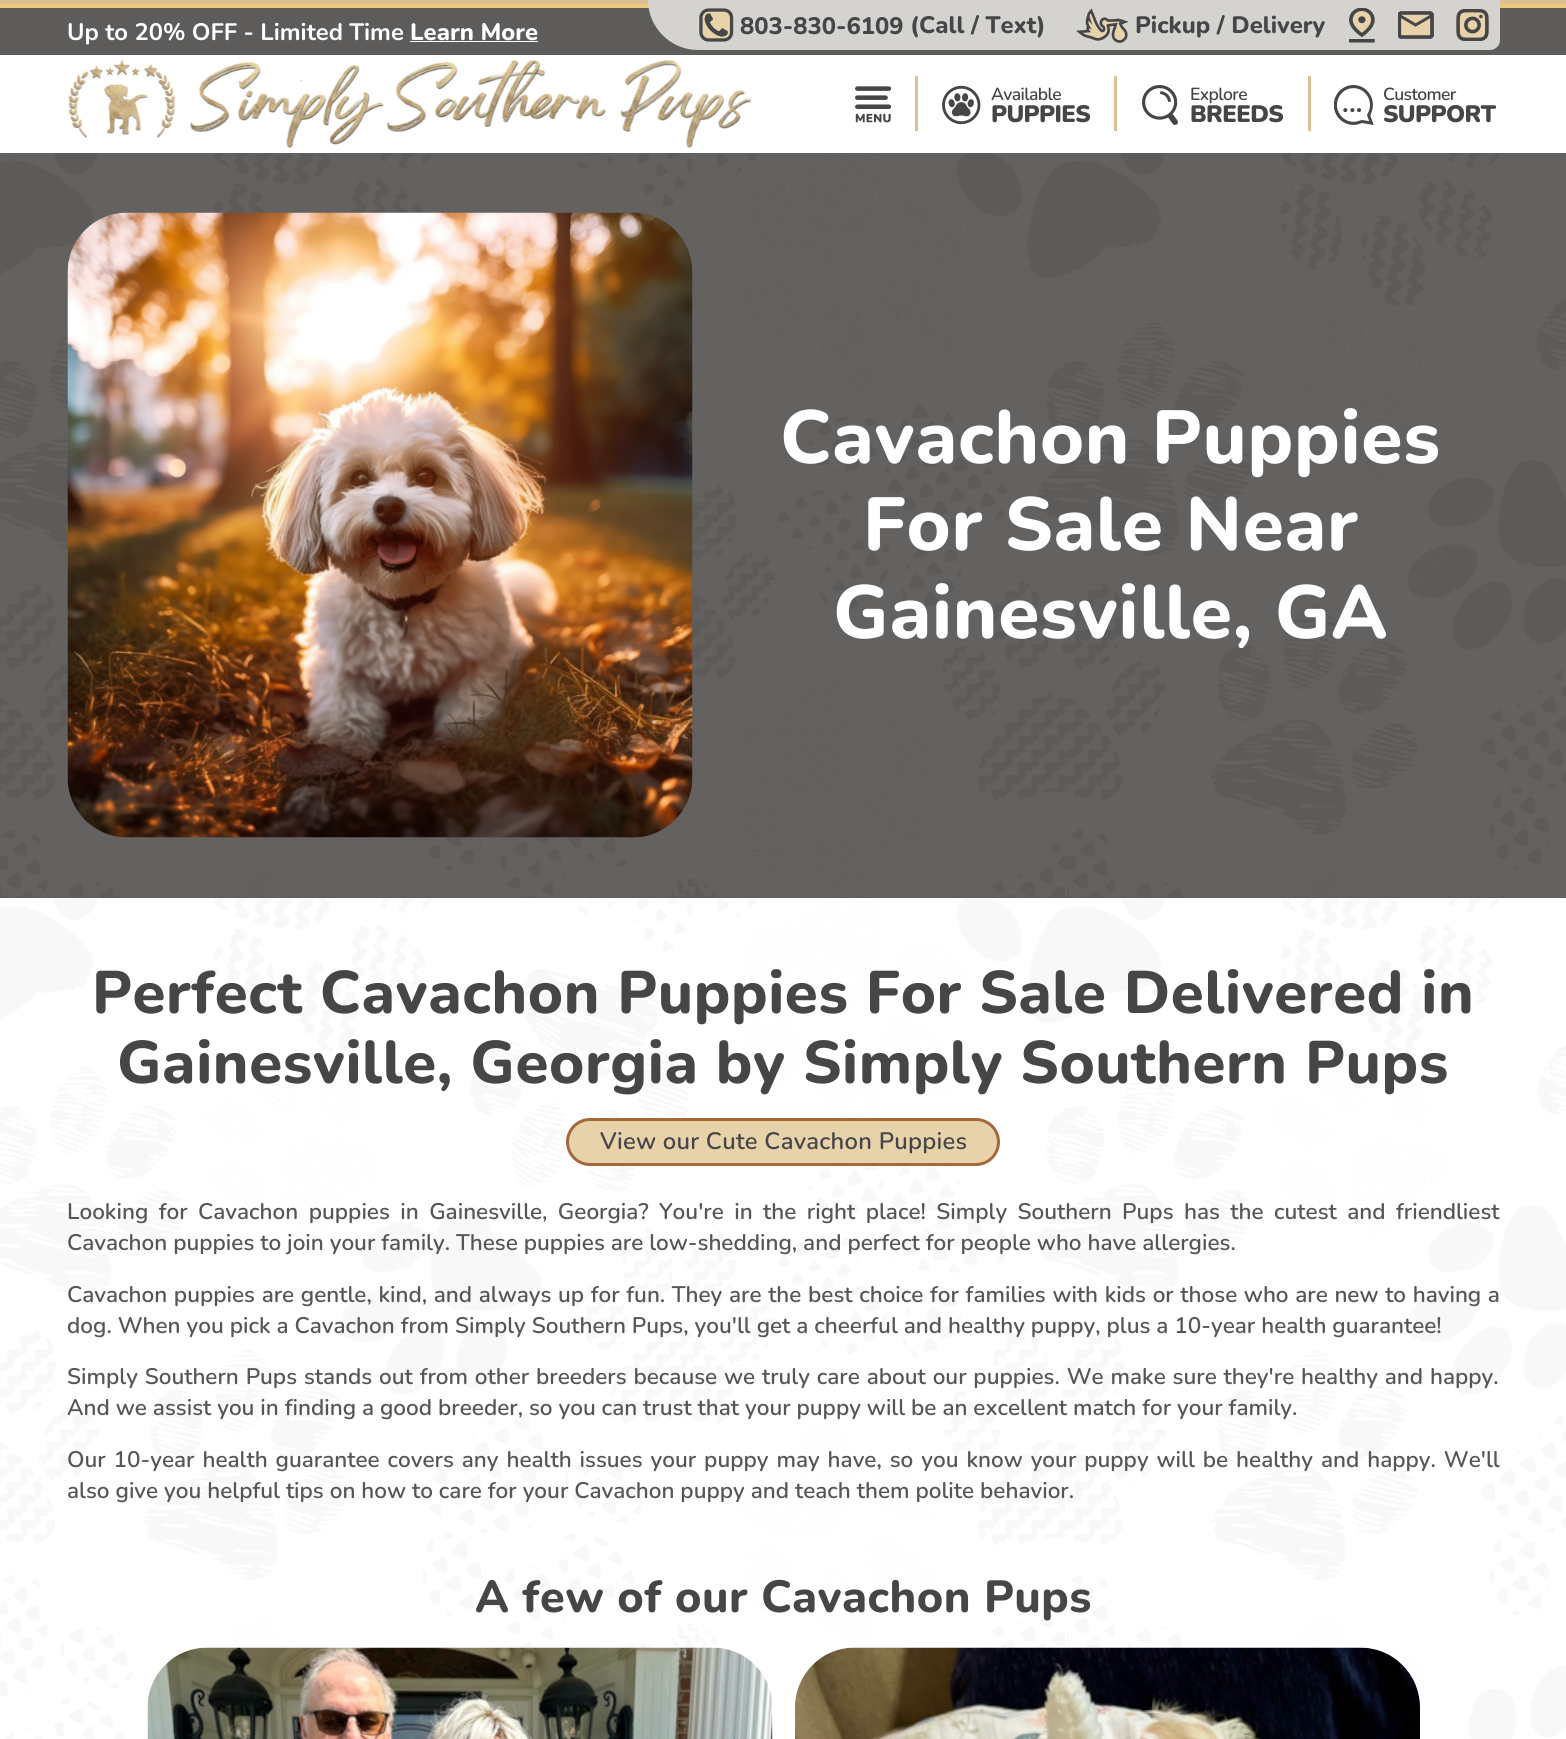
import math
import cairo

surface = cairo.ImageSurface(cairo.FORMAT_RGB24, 1566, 1739)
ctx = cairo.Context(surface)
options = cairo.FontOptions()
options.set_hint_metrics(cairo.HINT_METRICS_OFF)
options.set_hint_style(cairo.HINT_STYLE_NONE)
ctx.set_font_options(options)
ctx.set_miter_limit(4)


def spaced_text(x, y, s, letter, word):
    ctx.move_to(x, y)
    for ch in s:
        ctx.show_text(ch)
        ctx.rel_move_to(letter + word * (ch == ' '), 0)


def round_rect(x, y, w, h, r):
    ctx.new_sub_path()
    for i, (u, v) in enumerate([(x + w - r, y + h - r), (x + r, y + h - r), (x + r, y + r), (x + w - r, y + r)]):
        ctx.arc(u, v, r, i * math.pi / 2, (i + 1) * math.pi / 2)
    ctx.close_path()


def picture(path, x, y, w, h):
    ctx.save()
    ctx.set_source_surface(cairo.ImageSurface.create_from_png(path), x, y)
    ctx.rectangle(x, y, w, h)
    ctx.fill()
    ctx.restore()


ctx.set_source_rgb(1, 1, 1)
ctx.paint()
ctx.set_source_rgb(0.863, 0.757, 0.58)
ctx.rectangle(0, 0, 1566, 4)
ctx.fill()
ctx.set_source_rgb(0.925, 0.796, 0.478)
ctx.rectangle(0, 4, 1566, 4)
ctx.fill()
ctx.set_source_rgb(0.365, 0.361, 0.357)
ctx.rectangle(0, 8, 1566, 47)
ctx.fill()
ctx.select_font_face("Nunito", cairo.FONT_SLANT_NORMAL, cairo.FONT_WEIGHT_BOLD)
ctx.set_font_size(23.75)
ctx.set_source_rgb(1, 1, 1)
ctx.move_to(67, 40)
ctx.show_text("Up to 20% OFF - Limited Time")
ctx.select_font_face("Nunito ExtraBold")
ctx.move_to(410, 40)
ctx.show_text("Learn More")
ctx.rectangle(410, 41, 128, 1)
ctx.fill()
ctx.set_source_rgb(0.831, 0.827, 0.812)
ctx.new_path()
ctx.move_to(648, 0)
ctx.line_to(1500, 0)
ctx.line_to(1500, 40)
ctx.curve_to(1500, 45.5, 1495.5, 50, 1490, 50)
ctx.line_to(698, 50)
ctx.curve_to(670.5, 50, 648, 27.5, 648, 0)
ctx.close_path()
ctx.fill()
picture("img1.png", 699, 8, 35, 34)
ctx.set_source_rgb(0.275, 0.275, 0.282)
ctx.move_to(740, 34)
ctx.show_text("803-830-6109")
ctx.move_to(910, 33)
ctx.show_text("(Call / Text)")
picture("img2.png", 1076, 8, 53, 35)
ctx.move_to(1135, 33)
ctx.show_text("Pickup / Delivery")
picture("img3.png", 1349, 8, 26, 35)
picture("img4.png", 1398, 11, 36, 28)
picture("img5.png", 1456, 9, 33, 32)
picture("img6.png", 68, 59, 683, 89)
picture("img7.png", 855, 86, 36, 37)
ctx.set_source_rgb(0.863, 0.757, 0.58)
ctx.rectangle(915, 76, 3, 55)
ctx.fill()
picture("img8.png", 942, 85, 39, 40)
ctx.select_font_face("Nunito SemiBold")
ctx.set_font_size(17.5)
ctx.set_source_rgb(0.275, 0.275, 0.282)
spaced_text(991, 100, "Available", -0.6, 0)
ctx.select_font_face("Nunito Black")
ctx.set_font_size(23.75)
spaced_text(991, 122, "PUPPIES", -0.6, 0)
ctx.set_source_rgb(0.863, 0.757, 0.58)
ctx.rectangle(1114, 76, 3, 55)
ctx.fill()
picture("img9.png", 1142, 85, 36, 40)
ctx.select_font_face("Nunito SemiBold")
ctx.set_font_size(17.5)
ctx.set_source_rgb(0.275, 0.275, 0.282)
spaced_text(1190, 100, "Explore", -0.6, 0)
ctx.select_font_face("Nunito Black")
ctx.set_font_size(23.75)
spaced_text(1190, 122, "BREEDS", -0.6, 0)
ctx.set_source_rgb(0.863, 0.757, 0.58)
ctx.rectangle(1308, 76, 3, 55)
ctx.fill()
picture("img10.png", 1334, 85, 40, 40)
ctx.select_font_face("Nunito SemiBold")
ctx.set_font_size(17.5)
ctx.set_source_rgb(0.275, 0.275, 0.282)
spaced_text(1383, 100, "Customer", -0.6, 0)
ctx.select_font_face("Nunito Black")
ctx.set_font_size(23.75)
spaced_text(1383, 122, "SUPPORT", -0.6, 0)
ctx.set_source_rgb(0.365, 0.361, 0.357)
ctx.rectangle(0, 153, 1566, 745)
ctx.fill()
picture("img11.png", 0, 153, 1566, 744)
picture("img12.png", 67, 212, 626, 626)
ctx.select_font_face("Nunito ExtraBold")
ctx.set_font_size(75)
ctx.set_source_rgb(1, 1, 1)
spaced_text(780, 463, "Cavachon Puppies", 0.75, 0)
spaced_text(863, 550, "For Sale Near", 0.75, 0)
spaced_text(833, 638, "Gainesville, GA", 0.75, 0)
picture("img13.png", 0, 898, 1566, 841)
ctx.set_font_size(60)
ctx.set_source_rgb(0.275, 0.275, 0.282)
spaced_text(92, 1013, "Perfect Cavachon Puppies For Sale Delivered in", 0.6, 0)
spaced_text(117, 1083, "Gainesville, Georgia by Simply Southern Pups", 0.6, 0)
ctx.set_source_rgb(0.91, 0.824, 0.667)
round_rect(567.5, 1119.5, 431, 45, 22.5)
ctx.fill_preserve()
ctx.set_source_rgb(0.643, 0.408, 0.239)
ctx.set_line_width(3)
ctx.stroke()
ctx.select_font_face("Nunito SemiBold")
ctx.set_font_size(23.75)
ctx.set_source_rgb(0.275, 0.275, 0.282)
spaced_text(600, 1149, "View our Cute Cavachon Puppies", 0.25, 0)
ctx.set_font_size(22.5)
ctx.set_source_rgb(0.333, 0.337, 0.333)
spaced_text(67, 1219, "Looking for Cavachon puppies in Gainesville, Georgia? You're in the right place! Simply Southern Pups has the cutest and friendliest", 0, 4.5)
ctx.move_to(67, 1250)
ctx.show_text("Cavachon puppies to join your family. These puppies are low-shedding, and perfect for people who have allergies.")
spaced_text(67, 1302, "Cavachon puppies are gentle, kind, and always up for fun. They are the best choice for families with kids or those who are new to having a", 0, 0.7)
ctx.move_to(67, 1333)
ctx.show_text("dog. When you pick a Cavachon from Simply Southern Pups, you'll get a cheerful and healthy puppy, plus a 10-year health guarantee!")
spaced_text(67, 1384, "Simply Southern Pups stands out from other breeders because we truly care about our puppies. We make sure they're healthy and happy.", 0, 0.9)
ctx.move_to(67, 1415)
ctx.show_text("And we assist you in finding a good breeder, so you can trust that your puppy will be an excellent match for your family.")
spaced_text(67, 1467, "Our 10-year health guarantee covers any health issues your puppy may have, so you know your puppy will be healthy and happy. We'll", 0, 2)
ctx.move_to(67, 1498)
ctx.show_text("also give you helpful tips on how to care for your Cavachon puppy and teach them polite behavior.")
ctx.select_font_face("Nunito ExtraBold")
ctx.set_font_size(45)
ctx.set_source_rgb(0.275, 0.275, 0.282)
spaced_text(475, 1612, "A few of our Cavachon Pups", 0.45, 0)
picture("img14.png", 147, 1647, 626, 92)
picture("img15.png", 795, 1647, 625, 92)
surface.write_to_png("page.png")
